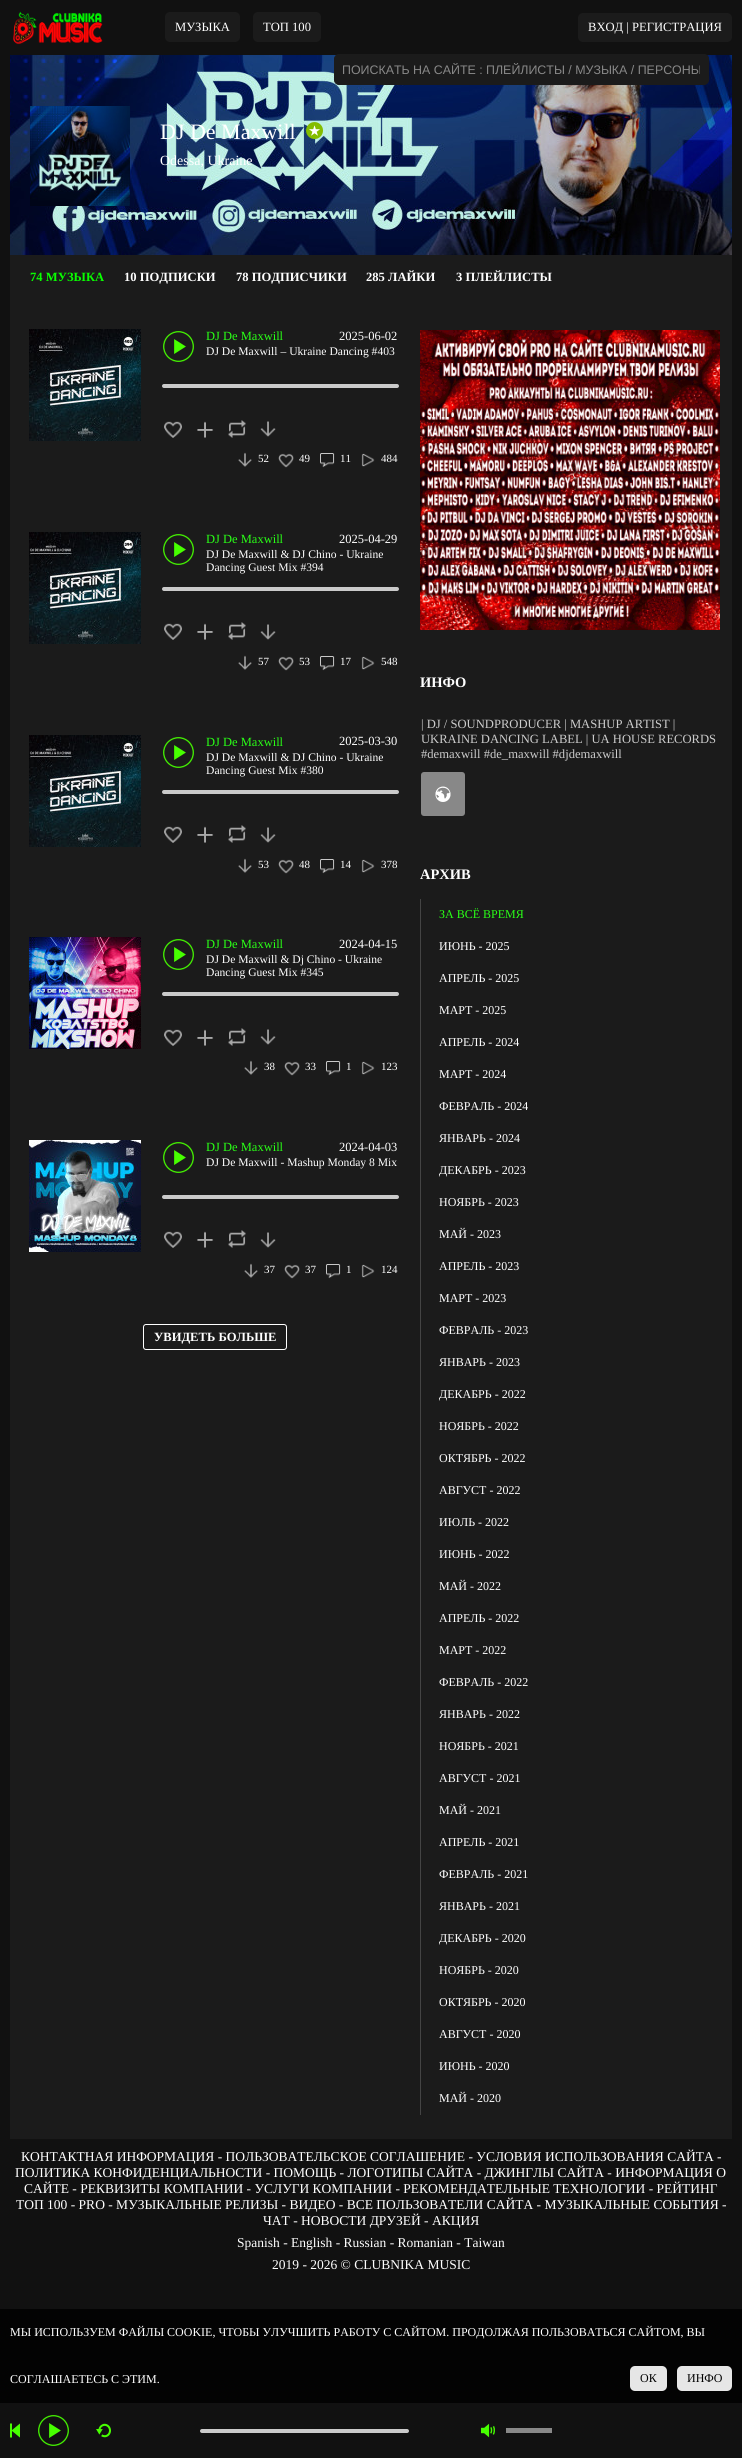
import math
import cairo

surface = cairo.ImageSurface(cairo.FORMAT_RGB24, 742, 2458)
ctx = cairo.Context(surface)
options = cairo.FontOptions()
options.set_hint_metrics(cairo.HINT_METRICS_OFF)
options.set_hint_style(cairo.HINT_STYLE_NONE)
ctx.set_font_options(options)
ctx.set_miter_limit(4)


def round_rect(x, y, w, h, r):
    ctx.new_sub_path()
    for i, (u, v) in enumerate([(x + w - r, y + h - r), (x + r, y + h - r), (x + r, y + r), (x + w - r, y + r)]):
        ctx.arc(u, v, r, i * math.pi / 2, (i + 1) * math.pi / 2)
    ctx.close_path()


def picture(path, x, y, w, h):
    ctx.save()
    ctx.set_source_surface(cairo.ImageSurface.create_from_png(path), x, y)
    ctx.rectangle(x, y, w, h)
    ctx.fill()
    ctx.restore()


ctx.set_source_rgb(0.067, 0.067, 0.067)
ctx.paint()
picture("img1.png", 13, 11, 90, 34)
ctx.set_source_rgb(0.106, 0.106, 0.106)
round_rect(165, 12, 75, 30, 5)
ctx.fill()
ctx.select_font_face("Liberation Serif")
ctx.set_font_size(12.6)
ctx.set_source_rgb(1, 1, 1)
ctx.move_to(175, 31)
ctx.show_text("МУЗЫКА")
ctx.set_source_rgb(0.106, 0.106, 0.106)
round_rect(253, 12, 68, 30, 5)
ctx.fill()
ctx.set_source_rgb(1, 1, 1)
ctx.move_to(263, 31)
ctx.show_text("ТОП 100")
ctx.set_source_rgb(0.106, 0.106, 0.106)
round_rect(578, 13, 154, 29, 5)
ctx.fill()
ctx.set_source_rgb(1, 1, 1)
ctx.move_to(588, 31)
ctx.show_text("ВХОД | РЕГИСТРАЦИЯ")
picture("img2.png", 10, 55, 722, 200)
ctx.set_source_rgb(0.106, 0.106, 0.106)
round_rect(334.5, 54.5, 374, 30, 4.5)
ctx.fill_preserve()
ctx.set_line_width(1)
ctx.stroke()
ctx.save()
ctx.rectangle(342, 63, 358, 14)
ctx.clip()
ctx.select_font_face("Liberation Sans")
ctx.set_font_size(12.4)
ctx.set_source_rgb(0.533, 0.533, 0.533)
ctx.move_to(342, 74)
ctx.show_text("ПОИСКАТЬ НА САЙТЕ : ПЛЕЙЛИСТЫ / МУЗЫКА / ПЕРСОНЫ")
ctx.restore()
ctx.rectangle(10, 255, 722, 1884)
ctx.fill()
picture("img3.png", 30, 106, 100, 100)
ctx.set_font_size(22)
ctx.set_source_rgb(1, 1, 1)
ctx.move_to(160, 139)
ctx.show_text("DJ De Maxwill")
picture("img4.png", 306, 122, 17, 17)
ctx.set_font_size(14)
ctx.move_to(160, 165)
ctx.show_text("Odessa, Ukraine")
ctx.select_font_face("Liberation Serif", cairo.FONT_SLANT_NORMAL, cairo.FONT_WEIGHT_BOLD)
ctx.set_font_size(12.6)
ctx.set_source_rgb(0.035, 1, 0)
ctx.move_to(30, 281)
ctx.show_text("74 МУЗЫКА")
ctx.set_source_rgb(1, 1, 1)
ctx.move_to(124, 281)
ctx.show_text("10 ПОДПИСКИ")
ctx.move_to(236, 281)
ctx.show_text("78 ПОДПИСЧИКИ")
ctx.move_to(366, 281)
ctx.show_text("285 ЛАЙКИ")
ctx.move_to(456, 281)
ctx.show_text("3 ПЛЕЙЛИСТЫ")
picture("img5.png", 29, 329, 112, 112)
picture("img6.png", 163, 331, 31, 31)
ctx.select_font_face("Liberation Serif")
ctx.set_font_size(12.5)
ctx.set_source_rgb(0.161, 1, 0.086)
ctx.move_to(206, 340)
ctx.show_text("DJ De Maxwill")
ctx.set_font_size(11.6)
ctx.set_source_rgb(1, 1, 1)
ctx.move_to(206, 355)
ctx.show_text("DJ De Maxwill – Ukraine Dancing #403")
ctx.set_font_size(12.5)
ctx.move_to(339, 340)
ctx.show_text("2025-06-02")
ctx.set_source_rgb(0.792, 0.792, 0.792)
round_rect(162, 384, 237, 4, 2)
ctx.fill()
picture("img7.png", 164, 421, 18, 17)
picture("img8.png", 197, 421, 17, 17)
picture("img9.png", 228, 420, 18, 18)
picture("img10.png", 260, 421, 16, 16)
picture("img11.png", 238, 452, 14, 15)
ctx.set_font_size(11)
ctx.set_source_rgb(1, 1, 1)
ctx.move_to(258, 462)
ctx.show_text("52")
picture("img12.png", 278, 453, 16, 15)
ctx.move_to(299, 462)
ctx.show_text("49")
picture("img13.png", 320, 453, 15, 15)
ctx.move_to(340, 462)
ctx.show_text("11")
picture("img14.png", 361, 453, 14, 14)
ctx.move_to(381, 462)
ctx.show_text("484")
picture("img15.png", 29, 532, 112, 112)
picture("img6.png", 163, 534, 31, 31)
ctx.set_font_size(12.5)
ctx.set_source_rgb(0.161, 1, 0.086)
ctx.move_to(206, 543)
ctx.show_text("DJ De Maxwill")
ctx.set_font_size(11.6)
ctx.set_source_rgb(1, 1, 1)
ctx.move_to(206, 558)
ctx.show_text("DJ De Maxwill & DJ Chino - Ukraine")
ctx.move_to(206, 571)
ctx.show_text("Dancing Guest Mix #394")
ctx.set_font_size(12.5)
ctx.move_to(339, 543)
ctx.show_text("2025-04-29")
ctx.set_source_rgb(0.792, 0.792, 0.792)
round_rect(162, 587, 237, 4, 2)
ctx.fill()
picture("img7.png", 164, 623, 18, 17)
picture("img8.png", 197, 623, 17, 17)
picture("img9.png", 228, 622, 18, 18)
picture("img10.png", 260, 624, 16, 16)
picture("img11.png", 238, 655, 14, 15)
ctx.set_font_size(11)
ctx.set_source_rgb(1, 1, 1)
ctx.move_to(258, 665)
ctx.show_text("57")
picture("img12.png", 278, 656, 16, 15)
ctx.move_to(299, 665)
ctx.show_text("53")
picture("img13.png", 320, 656, 15, 15)
ctx.move_to(340, 665)
ctx.show_text("17")
picture("img14.png", 361, 656, 14, 14)
ctx.move_to(381, 665)
ctx.show_text("548")
picture("img16.png", 29, 735, 112, 112)
picture("img6.png", 163, 737, 31, 31)
ctx.set_font_size(12.5)
ctx.move_to(339, 745)
ctx.show_text("2025-03-30")
ctx.set_source_rgb(0.161, 1, 0.086)
ctx.move_to(206, 746)
ctx.show_text("DJ De Maxwill")
ctx.set_font_size(11.6)
ctx.set_source_rgb(1, 1, 1)
ctx.move_to(206, 761)
ctx.show_text("DJ De Maxwill & DJ Chino - Ukraine")
ctx.move_to(206, 774)
ctx.show_text("Dancing Guest Mix #380")
ctx.set_source_rgb(0.792, 0.792, 0.792)
round_rect(162, 790, 237, 4, 2)
ctx.fill()
picture("img7.png", 164, 826, 18, 17)
picture("img8.png", 197, 826, 17, 17)
picture("img9.png", 228, 825, 18, 18)
picture("img10.png", 260, 827, 16, 16)
picture("img11.png", 238, 858, 14, 15)
ctx.set_font_size(11)
ctx.set_source_rgb(1, 1, 1)
ctx.move_to(258, 868)
ctx.show_text("53")
picture("img12.png", 278, 859, 16, 15)
ctx.move_to(299, 868)
ctx.show_text("48")
picture("img13.png", 320, 859, 15, 15)
ctx.move_to(340, 868)
ctx.show_text("14")
picture("img14.png", 361, 859, 14, 14)
ctx.move_to(381, 868)
ctx.show_text("378")
picture("img17.png", 29, 937, 112, 112)
picture("img6.png", 163, 939, 31, 31)
ctx.set_font_size(12.5)
ctx.set_source_rgb(0.161, 1, 0.086)
ctx.move_to(206, 948)
ctx.show_text("DJ De Maxwill")
ctx.set_font_size(11.6)
ctx.set_source_rgb(1, 1, 1)
ctx.move_to(206, 963)
ctx.show_text("DJ De Maxwill & Dj Chino - Ukraine")
ctx.move_to(206, 976)
ctx.show_text("Dancing Guest Mix #345")
ctx.set_font_size(12.5)
ctx.move_to(339, 948)
ctx.show_text("2024-04-15")
ctx.set_source_rgb(0.792, 0.792, 0.792)
round_rect(162, 992, 237, 4, 2)
ctx.fill()
picture("img7.png", 164, 1029, 18, 17)
picture("img8.png", 197, 1029, 17, 17)
picture("img9.png", 228, 1028, 18, 18)
picture("img10.png", 260, 1029, 16, 16)
picture("img11.png", 244, 1060, 14, 15)
ctx.set_font_size(11)
ctx.set_source_rgb(1, 1, 1)
ctx.move_to(264, 1070)
ctx.show_text("38")
picture("img12.png", 284, 1061, 16, 15)
ctx.move_to(305, 1070)
ctx.show_text("33")
picture("img13.png", 326, 1061, 15, 15)
ctx.move_to(346, 1070)
ctx.show_text("1")
picture("img14.png", 361, 1061, 14, 14)
ctx.move_to(381, 1070)
ctx.show_text("123")
picture("img18.png", 29, 1140, 112, 112)
picture("img6.png", 163, 1142, 31, 31)
ctx.set_font_size(12.5)
ctx.set_source_rgb(0.161, 1, 0.086)
ctx.move_to(206, 1151)
ctx.show_text("DJ De Maxwill")
ctx.set_font_size(11.6)
ctx.set_source_rgb(1, 1, 1)
ctx.move_to(206, 1166)
ctx.show_text("DJ De Maxwill - Mashup Monday 8 Mix")
ctx.set_font_size(12.5)
ctx.move_to(339, 1151)
ctx.show_text("2024-04-03")
ctx.set_source_rgb(0.792, 0.792, 0.792)
round_rect(162, 1195, 237, 4, 2)
ctx.fill()
picture("img7.png", 164, 1231, 18, 17)
picture("img8.png", 197, 1231, 17, 17)
picture("img9.png", 228, 1230, 18, 18)
picture("img10.png", 260, 1232, 16, 16)
picture("img11.png", 244, 1263, 14, 15)
ctx.set_font_size(11)
ctx.set_source_rgb(1, 1, 1)
ctx.move_to(264, 1273)
ctx.show_text("37")
picture("img12.png", 284, 1264, 16, 15)
ctx.move_to(305, 1273)
ctx.show_text("37")
picture("img13.png", 326, 1264, 15, 15)
ctx.move_to(346, 1273)
ctx.show_text("1")
picture("img14.png", 361, 1264, 14, 14)
ctx.move_to(381, 1273)
ctx.show_text("124")
round_rect(143.5, 1324.5, 143, 25, 2.5)
ctx.stroke()
ctx.select_font_face("Liberation Serif", cairo.FONT_SLANT_NORMAL, cairo.FONT_WEIGHT_BOLD)
ctx.set_font_size(12.6)
ctx.move_to(154, 1341)
ctx.show_text("УВИДЕТЬ БОЛЬШЕ")
picture("img19.png", 420, 330, 300, 300)
ctx.set_font_size(14.5)
ctx.move_to(420, 687)
ctx.show_text("ИНФО")
ctx.select_font_face("Liberation Serif")
ctx.set_font_size(12.6)
ctx.set_source_rgb(0.8, 0.8, 0.8)
ctx.move_to(421, 728)
ctx.show_text("| DJ / SOUNDPRODUCER | MASHUP ARTIST |")
ctx.move_to(421, 743)
ctx.show_text("UKRAINE DANCING LABEL | UA HOUSE RECORDS")
ctx.move_to(421, 758)
ctx.show_text("#demaxwill #de_maxwill #djdemaxwill")
ctx.set_source_rgb(0.533, 0.533, 0.533)
round_rect(421, 772, 44, 44, 3)
ctx.fill()
picture("img20.png", 435, 786, 16, 16)
ctx.select_font_face("Liberation Serif", cairo.FONT_SLANT_NORMAL, cairo.FONT_WEIGHT_BOLD)
ctx.set_font_size(14.5)
ctx.set_source_rgb(1, 1, 1)
ctx.move_to(420, 879)
ctx.show_text("АРХИВ")
ctx.set_source_rgb(0.267, 0.267, 0.267)
ctx.rectangle(420, 899, 1, 1216)
ctx.fill()
ctx.select_font_face("Liberation Serif")
ctx.set_font_size(12)
ctx.set_source_rgb(0.161, 1, 0.086)
ctx.move_to(439, 918)
ctx.show_text("ЗА ВСЁ ВРЕМЯ")
ctx.set_source_rgb(1, 1, 1)
ctx.move_to(439, 950)
ctx.show_text("ИЮНЬ - 2025")
ctx.move_to(439, 982)
ctx.show_text("АПРЕЛЬ - 2025")
ctx.move_to(439, 1014)
ctx.show_text("МАРТ - 2025")
ctx.move_to(439, 1046)
ctx.show_text("АПРЕЛЬ - 2024")
ctx.move_to(439, 1078)
ctx.show_text("МАРТ - 2024")
ctx.move_to(439, 1110)
ctx.show_text("ФЕВРАЛЬ - 2024")
ctx.move_to(439, 1142)
ctx.show_text("ЯНВАРЬ - 2024")
ctx.move_to(439, 1174)
ctx.show_text("ДЕКАБРЬ - 2023")
ctx.move_to(439, 1206)
ctx.show_text("НОЯБРЬ - 2023")
ctx.move_to(439, 1238)
ctx.show_text("МАЙ - 2023")
ctx.move_to(439, 1270)
ctx.show_text("АПРЕЛЬ - 2023")
ctx.move_to(439, 1302)
ctx.show_text("МАРТ - 2023")
ctx.move_to(439, 1334)
ctx.show_text("ФЕВРАЛЬ - 2023")
ctx.move_to(439, 1366)
ctx.show_text("ЯНВАРЬ - 2023")
ctx.move_to(439, 1398)
ctx.show_text("ДЕКАБРЬ - 2022")
ctx.move_to(439, 1430)
ctx.show_text("НОЯБРЬ - 2022")
ctx.move_to(439, 1462)
ctx.show_text("ОКТЯБРЬ - 2022")
ctx.move_to(439, 1494)
ctx.show_text("АВГУСТ - 2022")
ctx.move_to(439, 1526)
ctx.show_text("ИЮЛЬ - 2022")
ctx.move_to(439, 1558)
ctx.show_text("ИЮНЬ - 2022")
ctx.move_to(439, 1590)
ctx.show_text("МАЙ - 2022")
ctx.move_to(439, 1622)
ctx.show_text("АПРЕЛЬ - 2022")
ctx.move_to(439, 1654)
ctx.show_text("МАРТ - 2022")
ctx.move_to(439, 1686)
ctx.show_text("ФЕВРАЛЬ - 2022")
ctx.move_to(439, 1718)
ctx.show_text("ЯНВАРЬ - 2022")
ctx.move_to(439, 1750)
ctx.show_text("НОЯБРЬ - 2021")
ctx.move_to(439, 1782)
ctx.show_text("АВГУСТ - 2021")
ctx.move_to(439, 1814)
ctx.show_text("МАЙ - 2021")
ctx.move_to(439, 1846)
ctx.show_text("АПРЕЛЬ - 2021")
ctx.move_to(439, 1878)
ctx.show_text("ФЕВРАЛЬ - 2021")
ctx.move_to(439, 1910)
ctx.show_text("ЯНВАРЬ - 2021")
ctx.move_to(439, 1942)
ctx.show_text("ДЕКАБРЬ - 2020")
ctx.move_to(439, 1974)
ctx.show_text("НОЯБРЬ - 2020")
ctx.move_to(439, 2006)
ctx.show_text("ОКТЯБРЬ - 2020")
ctx.move_to(439, 2038)
ctx.show_text("АВГУСТ - 2020")
ctx.move_to(439, 2070)
ctx.show_text("ИЮНЬ - 2020")
ctx.move_to(439, 2102)
ctx.show_text("МАЙ - 2020")
ctx.set_font_size(13.5)
ctx.move_to(21, 2161)
ctx.show_text("КОНТАКТНАЯ ИНФОРМАЦИЯ - ПОЛЬЗОВАТЕЛЬСКОЕ СОГЛАШЕНИЕ - УСЛОВИЯ ИСПОЛЬЗОВАНИЯ САЙТА -")
ctx.move_to(15, 2177)
ctx.show_text("ПОЛИТИКА КОНФИДЕНЦИАЛЬНОСТИ - ПОМОЩЬ - ЛОГОТИПЫ САЙТА - ДЖИНГЛЫ САЙТА - ИНФОРМАЦИЯ О")
ctx.move_to(24, 2193)
ctx.show_text("САЙТЕ - РЕКВИЗИТЫ КОМПАНИИ - УСЛУГИ КОМПАНИИ - РЕКОМЕНДАТЕЛЬНЫЕ ТЕХНОЛОГИИ - РЕЙТИНГ")
ctx.move_to(16, 2209)
ctx.show_text("ТОП 100 - PRO - МУЗЫКАЛЬНЫЕ РЕЛИЗЫ - ВИДЕО - ВСЕ ПОЛЬЗОВАТЕЛИ САЙТА - МУЗЫКАЛЬНЫЕ СОБЫТИЯ -")
ctx.move_to(263, 2225)
ctx.show_text("ЧАТ - НОВОСТИ ДРУЗЕЙ - АКЦИЯ")
ctx.move_to(237, 2247)
ctx.show_text("Spanish - English - Russian - Romanian - Taiwan")
ctx.move_to(272, 2269)
ctx.show_text("2019 - 2026 © CLUBNIKA MUSIC")
ctx.set_source_rgb(0.012, 0.012, 0.012)
ctx.rectangle(0, 2309, 742, 94)
ctx.fill()
ctx.set_font_size(12)
ctx.set_source_rgb(1, 1, 1)
ctx.move_to(10, 2336)
ctx.show_text("МЫ ИСПОЛЬЗУЕМ ФАЙЛЫ COOKIE, ЧТОБЫ УЛУЧШИТЬ РАБОТУ С САЙТОМ. ПРОДОЛЖАЯ ПОЛЬЗОВАТЬСЯ САЙТОМ, ВЫ")
ctx.move_to(10, 2383)
ctx.show_text("СОГЛАШАЕТЕСЬ С ЭТИМ.")
ctx.set_source_rgb(0.902, 0.902, 0.902)
round_rect(630, 2366, 37, 25, 5)
ctx.fill()
ctx.set_source_rgb(0, 0, 0)
ctx.move_to(640, 2382)
ctx.show_text("ОК")
ctx.set_source_rgb(0.902, 0.902, 0.902)
round_rect(677, 2366, 55, 25, 5)
ctx.fill()
ctx.set_source_rgb(0, 0, 0)
ctx.move_to(687, 2382)
ctx.show_text("ИНФО")
picture("img21.png", 10, 2423, 10, 15)
picture("img22.png", 38, 2415, 31, 31)
picture("img23.png", 96, 2423, 15, 15)
ctx.set_source_rgb(0.792, 0.792, 0.792)
round_rect(200, 2429, 209, 4, 2)
ctx.fill()
picture("img24.png", 481, 2423, 14, 15)
ctx.set_source_rgb(0.533, 0.533, 0.533)
ctx.rectangle(506, 2428, 46, 5)
ctx.fill()
surface.write_to_png("page.png")
